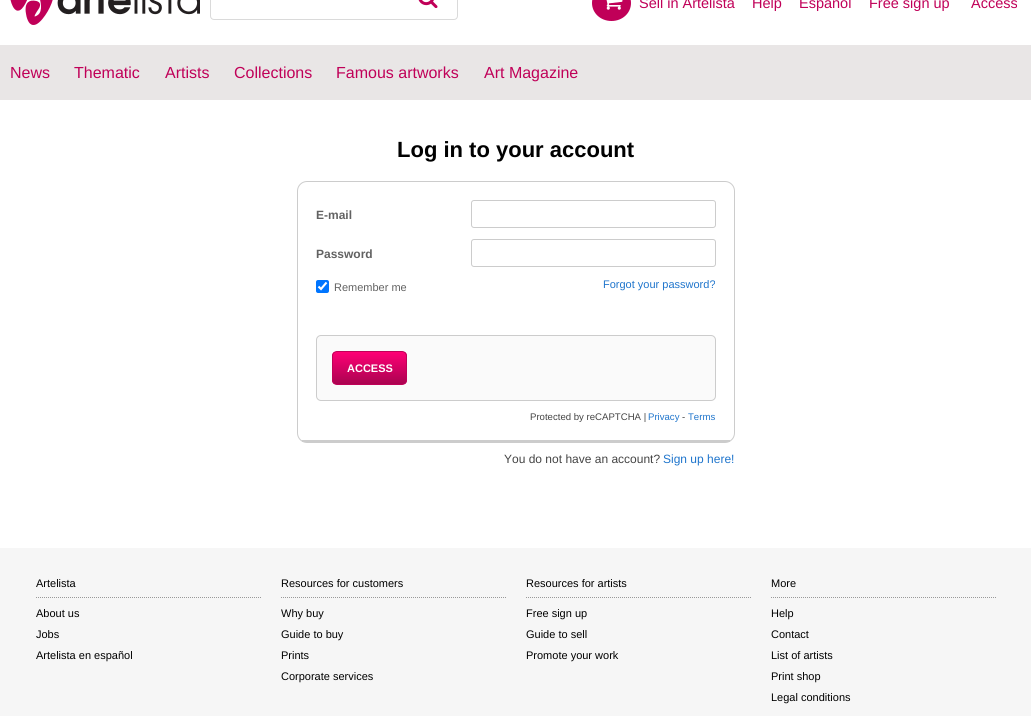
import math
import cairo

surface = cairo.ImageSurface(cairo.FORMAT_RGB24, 1031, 716)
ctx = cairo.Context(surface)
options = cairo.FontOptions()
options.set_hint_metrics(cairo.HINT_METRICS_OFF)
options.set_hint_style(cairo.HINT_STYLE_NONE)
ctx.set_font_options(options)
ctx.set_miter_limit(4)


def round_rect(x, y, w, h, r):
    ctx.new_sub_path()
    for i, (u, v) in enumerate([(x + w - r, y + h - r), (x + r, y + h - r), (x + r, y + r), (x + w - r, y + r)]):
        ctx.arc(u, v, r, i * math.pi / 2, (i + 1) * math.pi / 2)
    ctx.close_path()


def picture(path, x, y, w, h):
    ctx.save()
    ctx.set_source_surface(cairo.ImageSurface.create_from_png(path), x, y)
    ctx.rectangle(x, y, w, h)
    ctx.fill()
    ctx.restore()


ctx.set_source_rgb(1, 1, 1)
ctx.paint()
picture("img1.png", 10, 0, 190, 25)
round_rect(210.5, -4.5, 247, 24, 3.5)
ctx.set_source_rgb(0.855, 0.855, 0.855)
ctx.set_line_width(1)
ctx.stroke()
picture("img2.png", 418, 0, 20, 8)
ctx.set_source_rgb(0.753, 0, 0.345)
ctx.new_path()
ctx.move_to(611.5, -15)
ctx.curve_to(622.5, -15, 631, -7, 631, 3)
ctx.curve_to(631, 13, 622.5, 21, 611.5, 21)
ctx.curve_to(600.5, 21, 592, 13, 592, 3)
ctx.curve_to(592, -7, 600.5, -15, 611.5, -15)
ctx.close_path()
ctx.fill()
picture("img3.png", 606, 0, 17, 10)
ctx.select_font_face("Liberation Sans")
ctx.set_font_size(14.5)
ctx.move_to(639, 8)
ctx.show_text("Sell in Artelista")
ctx.move_to(752, 8)
ctx.show_text("Help")
ctx.move_to(799, 8)
ctx.show_text("Español")
ctx.move_to(869, 8)
ctx.show_text("Free sign up")
ctx.move_to(971, 8)
ctx.show_text("Access")
ctx.set_source_rgb(0.914, 0.902, 0.902)
ctx.rectangle(0, 45, 1031, 55)
ctx.fill()
ctx.set_font_size(16)
ctx.set_source_rgb(0.753, 0, 0.345)
ctx.move_to(10, 78)
ctx.show_text("News")
ctx.move_to(74, 78)
ctx.show_text("Thematic")
ctx.move_to(165, 78)
ctx.show_text("Artists")
ctx.move_to(234, 78)
ctx.show_text("Collections")
ctx.move_to(336, 78)
ctx.show_text("Famous artworks")
ctx.move_to(484, 78)
ctx.show_text("Art Magazine")
ctx.select_font_face("Liberation Sans", cairo.FONT_SLANT_NORMAL, cairo.FONT_WEIGHT_BOLD)
ctx.set_font_size(22)
ctx.set_source_rgb(0, 0, 0)
ctx.move_to(397, 157)
ctx.show_text("Log in to your account")
round_rect(297.5, 181.5, 437, 261, 9.5)
ctx.set_source_rgb(0.8, 0.8, 0.8)
ctx.stroke()
ctx.rectangle(302, 440, 428, 2)
ctx.fill()
ctx.set_font_size(12)
ctx.set_source_rgb(0.384, 0.384, 0.384)
ctx.move_to(316, 219)
ctx.show_text("E-mail")
round_rect(471.5, 200.5, 244, 27, 2.5)
ctx.set_source_rgb(0.8, 0.8, 0.8)
ctx.stroke()
ctx.set_source_rgb(0.384, 0.384, 0.384)
ctx.move_to(316, 258)
ctx.show_text("Password")
round_rect(471.5, 239.5, 244, 27, 2.5)
ctx.set_source_rgb(0.8, 0.8, 0.8)
ctx.stroke()
ctx.set_source_rgb(0, 0.459, 1)
round_rect(316, 280, 13, 13, 2)
ctx.fill()
ctx.new_path()
ctx.move_to(318.5, 286.5)
ctx.line_to(321, 289)
ctx.line_to(326.5, 282.5)
ctx.set_source_rgb(1, 1, 1)
ctx.set_line_width(2.1)
ctx.stroke()
ctx.select_font_face("Liberation Sans")
ctx.set_font_size(11)
ctx.set_source_rgb(0.384, 0.384, 0.384)
ctx.move_to(334, 291)
ctx.show_text("Remember me")
ctx.set_source_rgb(0.122, 0.459, 0.8)
ctx.move_to(603, 288)
ctx.show_text("Forgot your password?")
ctx.set_source_rgb(0.98, 0.98, 0.98)
round_rect(316.5, 335.5, 399, 65, 4.5)
ctx.fill_preserve()
ctx.set_source_rgb(0.8, 0.8, 0.8)
ctx.set_line_width(1)
ctx.stroke()
ctx.save()
round_rect(332, 351, 75, 34, 5)
ctx.clip()
gradient = cairo.LinearGradient(370, 352, 370, 384)
gradient.add_color_stop_rgba(0, 1, 0, 0.459, 1)
gradient.add_color_stop_rgba(1, 0.667, 0.012, 0.314, 1)
ctx.set_source(gradient)
ctx.rectangle(332, 352, 75, 32)
ctx.fill()
ctx.restore()
round_rect(332.5, 351.5, 74, 33, 4.5)
ctx.set_source_rgb(0.753, 0, 0.345)
ctx.stroke()
ctx.select_font_face("Liberation Sans", cairo.FONT_SLANT_NORMAL, cairo.FONT_WEIGHT_BOLD)
ctx.set_source_rgb(1, 1, 1)
ctx.move_to(347, 372)
ctx.show_text("ACCESS")
ctx.select_font_face("Liberation Sans")
ctx.set_font_size(9.6)
ctx.set_source_rgb(0.267, 0.267, 0.267)
ctx.move_to(530, 420)
ctx.show_text("Protected by reCAPTCHA |")
ctx.set_source_rgb(0.122, 0.459, 0.8)
ctx.move_to(648, 420)
ctx.show_text("Privacy")
ctx.set_source_rgb(0.267, 0.267, 0.267)
ctx.move_to(682, 420)
ctx.show_text("-")
ctx.set_source_rgb(0.122, 0.459, 0.8)
ctx.move_to(688, 420)
ctx.show_text("Terms")
ctx.set_font_size(12)
ctx.set_source_rgb(0.267, 0.267, 0.267)
ctx.move_to(504, 463)
ctx.show_text("You do not have an account?")
ctx.set_source_rgb(0.122, 0.459, 0.8)
ctx.move_to(663, 463)
ctx.show_text("Sign up here!")
ctx.set_source_rgb(0.961, 0.961, 0.961)
ctx.rectangle(0, 548, 1031, 168)
ctx.fill()
ctx.new_path()
ctx.move_to(36, 597.5)
ctx.line_to(261, 597.5)
ctx.set_source_rgb(0.6, 0.6, 0.6)
ctx.set_dash([1, 1])
ctx.stroke()
ctx.set_font_size(11)
ctx.set_source_rgb(0, 0, 0)
ctx.move_to(36, 587)
ctx.show_text("Artelista")
ctx.move_to(36, 617)
ctx.show_text("About us")
ctx.move_to(36, 638)
ctx.show_text("Jobs")
ctx.move_to(36, 659)
ctx.show_text("Artelista en español")
ctx.new_path()
ctx.move_to(281, 597.5)
ctx.line_to(506, 597.5)
ctx.set_source_rgb(0.6, 0.6, 0.6)
ctx.stroke()
ctx.set_source_rgb(0, 0, 0)
ctx.move_to(281, 587)
ctx.show_text("Resources for customers")
ctx.move_to(281, 617)
ctx.show_text("Why buy")
ctx.move_to(281, 638)
ctx.show_text("Guide to buy")
ctx.move_to(281, 659)
ctx.show_text("Prints")
ctx.move_to(281, 680)
ctx.show_text("Corporate services")
ctx.new_path()
ctx.move_to(526, 597.5)
ctx.line_to(751, 597.5)
ctx.set_source_rgb(0.6, 0.6, 0.6)
ctx.stroke()
ctx.set_source_rgb(0, 0, 0)
ctx.move_to(526, 587)
ctx.show_text("Resources for artists")
ctx.move_to(526, 617)
ctx.show_text("Free sign up")
ctx.move_to(526, 638)
ctx.show_text("Guide to sell")
ctx.move_to(526, 659)
ctx.show_text("Promote your work")
ctx.new_path()
ctx.move_to(771, 597.5)
ctx.line_to(996, 597.5)
ctx.set_source_rgb(0.6, 0.6, 0.6)
ctx.stroke()
ctx.set_source_rgb(0, 0, 0)
ctx.move_to(771, 587)
ctx.show_text("More")
ctx.move_to(771, 617)
ctx.show_text("Help")
ctx.move_to(771, 638)
ctx.show_text("Contact")
ctx.move_to(771, 659)
ctx.show_text("List of artists")
ctx.move_to(771, 680)
ctx.show_text("Print shop")
ctx.move_to(771, 701)
ctx.show_text("Legal conditions")
surface.write_to_png("page.png")
